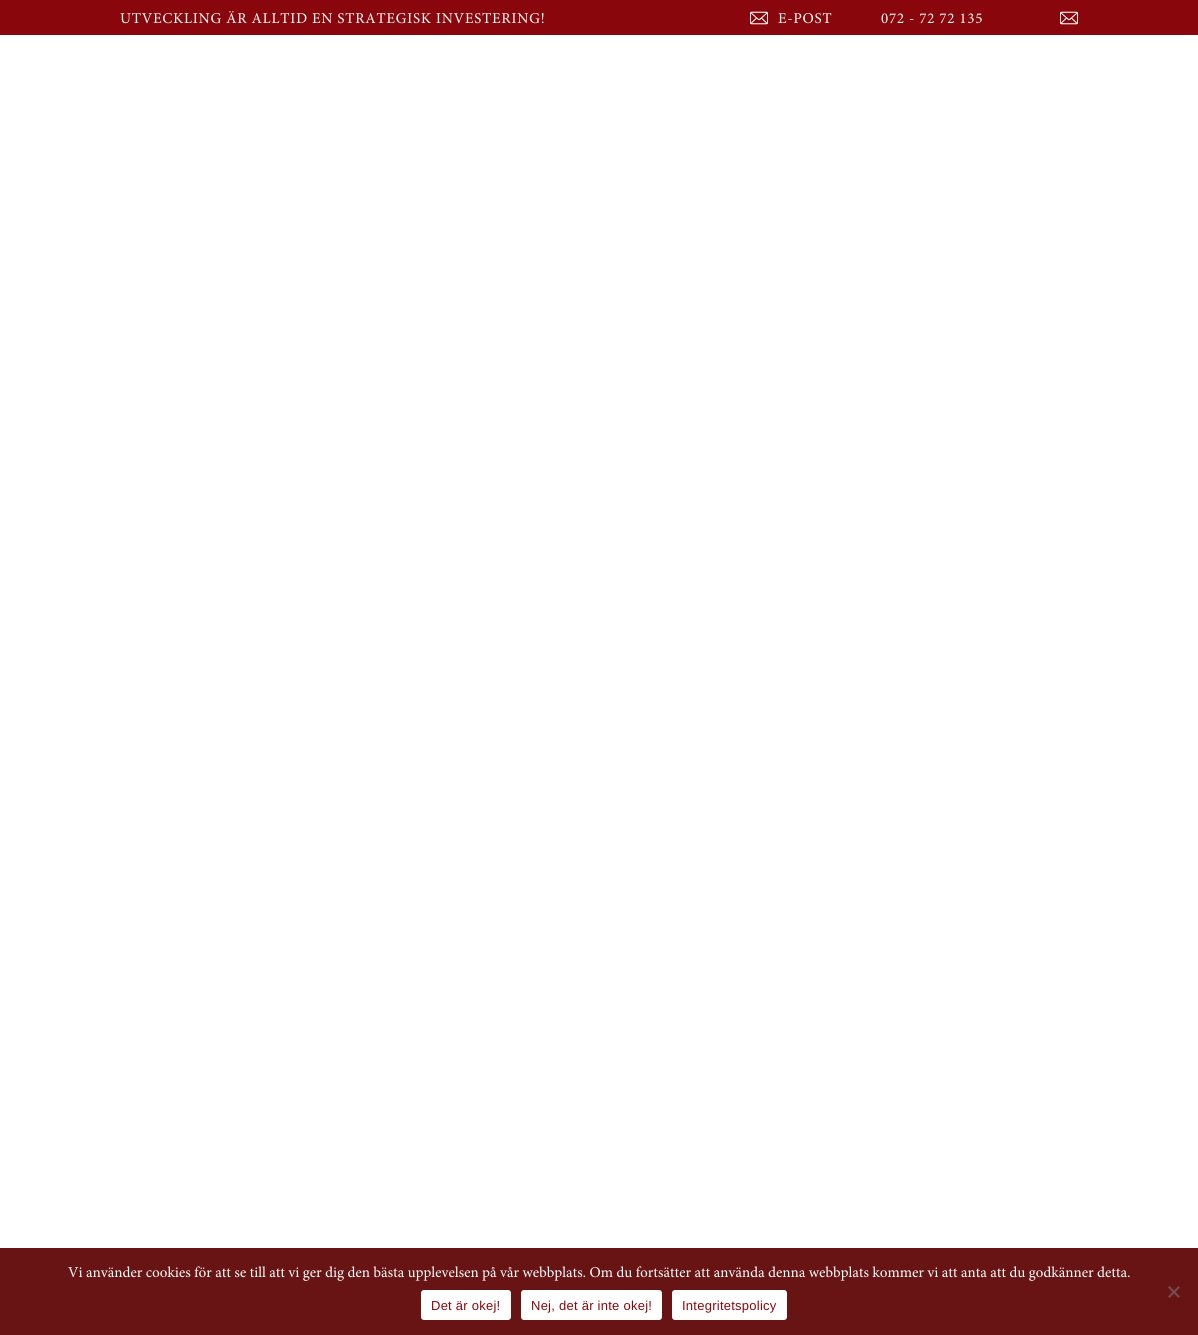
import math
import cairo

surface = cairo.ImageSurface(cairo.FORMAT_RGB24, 1198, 1335)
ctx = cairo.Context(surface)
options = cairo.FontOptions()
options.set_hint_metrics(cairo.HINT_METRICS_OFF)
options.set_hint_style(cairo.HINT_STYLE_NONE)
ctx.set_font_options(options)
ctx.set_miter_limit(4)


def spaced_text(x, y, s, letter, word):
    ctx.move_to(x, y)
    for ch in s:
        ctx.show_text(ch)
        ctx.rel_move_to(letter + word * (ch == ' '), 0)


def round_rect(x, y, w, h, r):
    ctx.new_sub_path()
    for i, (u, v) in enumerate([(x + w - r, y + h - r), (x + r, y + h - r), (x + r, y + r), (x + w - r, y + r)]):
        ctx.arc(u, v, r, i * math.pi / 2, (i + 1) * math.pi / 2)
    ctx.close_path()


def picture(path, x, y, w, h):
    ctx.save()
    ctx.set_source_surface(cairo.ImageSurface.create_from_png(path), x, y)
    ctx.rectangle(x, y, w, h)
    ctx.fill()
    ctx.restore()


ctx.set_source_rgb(0.537, 0.031, 0.047)
ctx.paint()
picture("img1.png", 120, 11, 424, 13)
picture("img2.png", 750, 11, 18, 14)
picture("img3.png", 778, 12, 54, 12)
picture("img4.png", 881, 13, 101, 11)
picture("img5.png", 1060, 11, 18, 14)
ctx.set_source_rgb(1, 1, 1)
ctx.rectangle(0, 35, 1198, 1213)
ctx.fill()
ctx.set_source_rgb(0.412, 0.082, 0.082)
ctx.rectangle(0, 1248, 1198, 87)
ctx.fill()
picture("img6.png", 68, 1266, 1062, 15)
ctx.set_source_rgb(0.459, 0.294, 0.294)
ctx.new_path()
ctx.move_to(1178.5, 1286)
ctx.line_to(1180, 1287.5)
ctx.line_to(1169.5, 1298)
ctx.line_to(1168, 1296.5)
ctx.close_path()
ctx.fill()
ctx.new_path()
ctx.move_to(1168, 1287.5)
ctx.line_to(1169.5, 1286)
ctx.line_to(1180, 1296.5)
ctx.line_to(1178.5, 1298)
ctx.close_path()
ctx.fill()
ctx.set_source_rgb(1, 1, 1)
round_rect(421, 1290, 90, 30, 3)
ctx.fill()
ctx.select_font_face("Liberation Sans")
ctx.set_font_size(13)
ctx.set_source_rgb(0.537, 0.031, 0.047)
spaced_text(431, 1310, "Det är okej!", 0.25, 0)
ctx.set_source_rgb(1, 1, 1)
round_rect(521, 1290, 141, 30, 3)
ctx.fill()
ctx.set_source_rgb(0.537, 0.031, 0.047)
spaced_text(531, 1310, "Nej, det är inte okej!", 0.25, 0)
ctx.set_source_rgb(1, 1, 1)
round_rect(672, 1290, 115, 30, 3)
ctx.fill()
ctx.set_source_rgb(0.537, 0.031, 0.047)
spaced_text(682, 1310, "Integritetspolicy", 0.25, 0)
surface.write_to_png("page.png")
